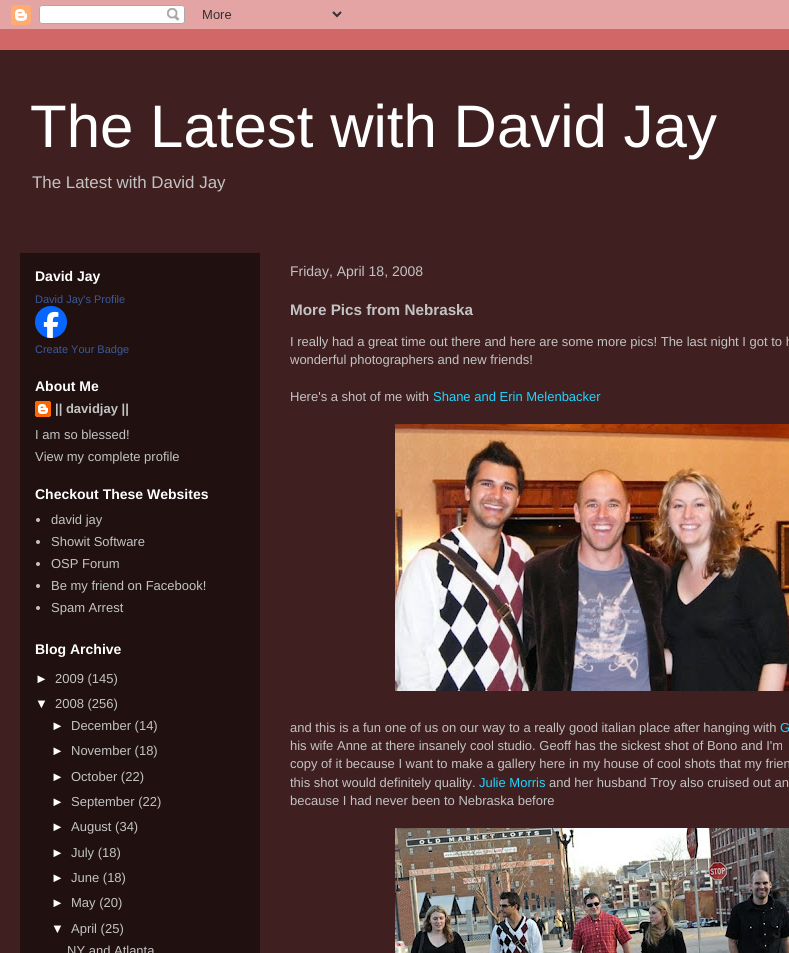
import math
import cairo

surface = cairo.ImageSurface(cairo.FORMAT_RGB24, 789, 953)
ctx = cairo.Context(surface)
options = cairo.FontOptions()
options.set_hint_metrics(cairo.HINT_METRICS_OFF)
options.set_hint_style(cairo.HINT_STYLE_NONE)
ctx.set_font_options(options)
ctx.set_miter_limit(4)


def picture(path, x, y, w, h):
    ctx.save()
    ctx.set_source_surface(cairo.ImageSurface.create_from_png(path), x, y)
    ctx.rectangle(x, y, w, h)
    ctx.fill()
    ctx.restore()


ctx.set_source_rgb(0.824, 0.404, 0.404)
ctx.paint()
picture("img1.png", 0, 0, 789, 30)
ctx.set_source_rgb(0.247, 0.122, 0.122)
ctx.rectangle(0, 50, 789, 903)
ctx.fill()
ctx.select_font_face("Liberation Sans")
ctx.set_font_size(60)
ctx.set_source_rgb(1, 1, 1)
ctx.move_to(30, 147)
ctx.show_text("The Latest with David Jay")
ctx.set_font_size(16.9)
ctx.set_source_rgb(0.765, 0.765, 0.765)
ctx.move_to(32, 188)
ctx.show_text("The Latest with David Jay")
ctx.set_source_rgb(0.125, 0.063, 0.063)
ctx.rectangle(20, 253, 240, 700)
ctx.fill()
ctx.select_font_face("Liberation Sans", cairo.FONT_SLANT_NORMAL, cairo.FONT_WEIGHT_BOLD)
ctx.set_font_size(14)
ctx.set_source_rgb(1, 1, 1)
ctx.move_to(35, 281)
ctx.show_text("David Jay")
ctx.select_font_face("Liberation Sans")
ctx.set_font_size(11)
ctx.set_source_rgb(0.231, 0.349, 0.596)
ctx.move_to(35, 303)
ctx.show_text("David Jay's Profile")
picture("img2.png", 35, 306, 32, 32)
ctx.move_to(35, 353)
ctx.show_text("Create Your Badge")
ctx.select_font_face("Liberation Sans", cairo.FONT_SLANT_NORMAL, cairo.FONT_WEIGHT_BOLD)
ctx.set_font_size(14)
ctx.set_source_rgb(1, 1, 1)
ctx.move_to(35, 391)
ctx.show_text("About Me")
picture("img3.png", 35, 401, 16, 16)
ctx.set_font_size(13)
ctx.set_source_rgb(0.765, 0.765, 0.765)
ctx.move_to(55, 413)
ctx.show_text("|| davidjay ||")
ctx.select_font_face("Liberation Sans")
ctx.move_to(35, 439)
ctx.show_text("I am so blessed!")
ctx.move_to(35, 461)
ctx.show_text("View my complete profile")
ctx.select_font_face("Liberation Sans", cairo.FONT_SLANT_NORMAL, cairo.FONT_WEIGHT_BOLD)
ctx.set_font_size(14)
ctx.set_source_rgb(1, 1, 1)
ctx.move_to(35, 499)
ctx.show_text("Checkout These Websites")
ctx.set_source_rgb(0.765, 0.765, 0.765)
ctx.new_path()
ctx.arc(38, 520, 2, 0, 2 * math.pi)
ctx.fill()
ctx.select_font_face("Liberation Sans")
ctx.set_font_size(13)
ctx.move_to(51, 524)
ctx.show_text("david jay")
ctx.new_path()
ctx.arc(38, 542, 2, 0, 2 * math.pi)
ctx.fill()
ctx.move_to(51, 546)
ctx.show_text("Showit Software")
ctx.new_path()
ctx.arc(38, 564, 2, 0, 2 * math.pi)
ctx.fill()
ctx.move_to(51, 568)
ctx.show_text("OSP Forum")
ctx.new_path()
ctx.arc(38, 586, 2, 0, 2 * math.pi)
ctx.fill()
ctx.move_to(51, 590)
ctx.show_text("Be my friend on Facebook!")
ctx.new_path()
ctx.arc(38, 608, 2, 0, 2 * math.pi)
ctx.fill()
ctx.move_to(51, 612)
ctx.show_text("Spam Arrest")
ctx.select_font_face("Liberation Sans", cairo.FONT_SLANT_NORMAL, cairo.FONT_WEIGHT_BOLD)
ctx.set_font_size(14)
ctx.set_source_rgb(1, 1, 1)
ctx.move_to(35, 654)
ctx.show_text("Blog Archive")
ctx.select_font_face("Liberation Sans")
ctx.set_font_size(13)
ctx.move_to(35, 683)
ctx.show_text("►")
ctx.set_source_rgb(0.765, 0.765, 0.765)
ctx.move_to(55, 683)
ctx.show_text("2009 (145)")
ctx.set_source_rgb(1, 1, 1)
ctx.move_to(35, 708)
ctx.show_text("▼")
ctx.set_source_rgb(0.765, 0.765, 0.765)
ctx.move_to(55, 708)
ctx.show_text("2008 (256)")
ctx.set_source_rgb(1, 1, 1)
ctx.move_to(51, 730)
ctx.show_text("►")
ctx.set_source_rgb(0.765, 0.765, 0.765)
ctx.move_to(71, 730)
ctx.show_text("December (14)")
ctx.set_source_rgb(1, 1, 1)
ctx.move_to(51, 755)
ctx.show_text("►")
ctx.set_source_rgb(0.765, 0.765, 0.765)
ctx.move_to(71, 755)
ctx.show_text("November (18)")
ctx.set_source_rgb(1, 1, 1)
ctx.move_to(51, 781)
ctx.show_text("►")
ctx.set_source_rgb(0.765, 0.765, 0.765)
ctx.move_to(71, 781)
ctx.show_text("October (22)")
ctx.set_source_rgb(1, 1, 1)
ctx.move_to(51, 806)
ctx.show_text("►")
ctx.set_source_rgb(0.765, 0.765, 0.765)
ctx.move_to(71, 806)
ctx.show_text("September (22)")
ctx.set_source_rgb(1, 1, 1)
ctx.move_to(51, 831)
ctx.show_text("►")
ctx.set_source_rgb(0.765, 0.765, 0.765)
ctx.move_to(71, 831)
ctx.show_text("August (34)")
ctx.set_source_rgb(1, 1, 1)
ctx.move_to(51, 857)
ctx.show_text("►")
ctx.set_source_rgb(0.765, 0.765, 0.765)
ctx.move_to(71, 857)
ctx.show_text("July (18)")
ctx.set_source_rgb(1, 1, 1)
ctx.move_to(51, 882)
ctx.show_text("►")
ctx.set_source_rgb(0.765, 0.765, 0.765)
ctx.move_to(71, 882)
ctx.show_text("June (18)")
ctx.set_source_rgb(1, 1, 1)
ctx.move_to(51, 907)
ctx.show_text("►")
ctx.set_source_rgb(0.765, 0.765, 0.765)
ctx.move_to(71, 907)
ctx.show_text("May (20)")
ctx.set_source_rgb(1, 1, 1)
ctx.move_to(51, 933)
ctx.show_text("▼")
ctx.set_source_rgb(0.765, 0.765, 0.765)
ctx.move_to(71, 933)
ctx.show_text("April (25)")
ctx.move_to(67, 955)
ctx.show_text("NY and Atlanta")
ctx.set_font_size(14)
ctx.move_to(290, 276)
ctx.show_text("Friday, April 18, 2008")
ctx.select_font_face("Liberation Sans", cairo.FONT_SLANT_NORMAL, cairo.FONT_WEIGHT_BOLD)
ctx.set_font_size(15.25)
ctx.move_to(290, 315)
ctx.show_text("More Pics from Nebraska")
ctx.select_font_face("Liberation Sans")
ctx.set_font_size(13)
ctx.move_to(290, 346)
ctx.show_text("I really had a great time out there and here are some more pics! The last night I got to h")
ctx.move_to(290, 364)
ctx.show_text("wonderful photographers and new friends!")
ctx.move_to(290, 401)
ctx.show_text("Here's a shot of me with")
ctx.set_source_rgb(0.125, 0.831, 1)
ctx.move_to(433, 401)
ctx.show_text("Shane and Erin Melenbacker")
picture("img4.png", 395, 424, 394, 267)
ctx.set_source_rgb(0.765, 0.765, 0.765)
ctx.move_to(290, 732)
ctx.show_text("and this is a fun one of us on our way to a really good italian place after hanging with")
ctx.set_source_rgb(0.125, 0.831, 1)
ctx.move_to(780, 732)
ctx.show_text("G")
ctx.set_source_rgb(0.765, 0.765, 0.765)
ctx.move_to(290, 750)
ctx.show_text("his wife Anne at there insanely cool studio. Geoff has the sickest shot of Bono and I'm")
ctx.move_to(290, 768)
ctx.show_text("copy of it because I want to make a gallery here in my house of cool shots that my frien")
ctx.move_to(290, 787)
ctx.show_text("this shot would definitely quality.")
ctx.set_source_rgb(0.125, 0.831, 1)
ctx.move_to(479, 787)
ctx.show_text("Julie Morris")
ctx.set_source_rgb(0.765, 0.765, 0.765)
ctx.move_to(549, 787)
ctx.show_text("and her husband Troy also cruised out an")
ctx.move_to(290, 805)
ctx.show_text("because I had never been to Nebraska before")
picture("img5.png", 395, 828, 394, 125)
surface.write_to_png("page.png")
